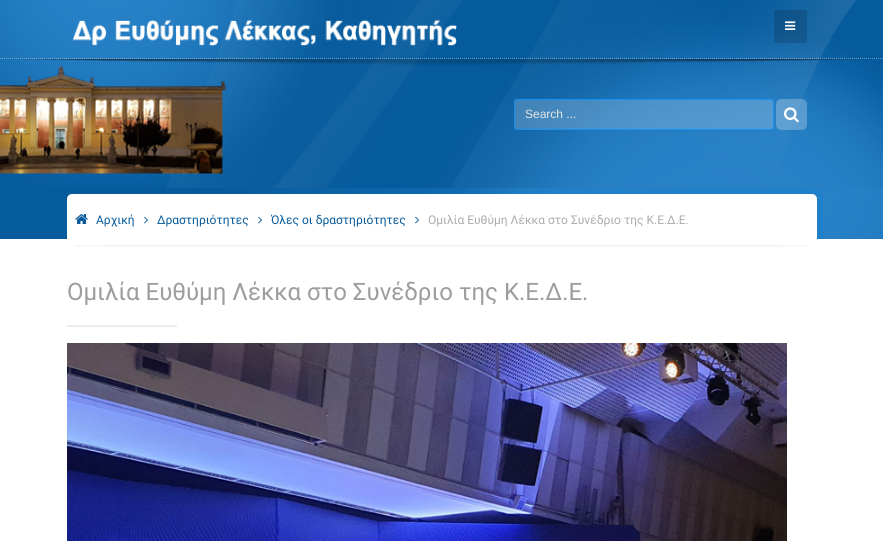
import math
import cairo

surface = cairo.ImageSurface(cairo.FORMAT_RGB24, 883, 541)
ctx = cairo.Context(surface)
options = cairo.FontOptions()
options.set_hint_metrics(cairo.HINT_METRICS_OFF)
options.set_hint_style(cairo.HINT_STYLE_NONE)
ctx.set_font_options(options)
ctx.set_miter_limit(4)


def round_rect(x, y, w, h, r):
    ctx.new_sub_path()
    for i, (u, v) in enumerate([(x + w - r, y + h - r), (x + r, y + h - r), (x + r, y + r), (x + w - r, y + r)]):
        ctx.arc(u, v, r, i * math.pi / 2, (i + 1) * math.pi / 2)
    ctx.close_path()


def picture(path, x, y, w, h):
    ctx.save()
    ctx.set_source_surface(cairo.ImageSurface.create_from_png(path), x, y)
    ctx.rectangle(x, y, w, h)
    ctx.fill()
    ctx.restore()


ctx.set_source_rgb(1, 1, 1)
ctx.paint()
ctx.set_source_rgb(0.024, 0.357, 0.616)
ctx.rectangle(0, 0, 883, 239)
ctx.fill()
picture("img1.png", 0, 0, 883, 188)
ctx.new_path()
ctx.move_to(0, 58.5)
ctx.line_to(883, 58.5)
ctx.set_source_rgba(1, 1, 1, 0.4)
ctx.set_line_width(1)
ctx.set_dash([1, 1])
ctx.stroke()
picture("img2.png", 73, 19, 384, 27)
ctx.set_source_rgba(0, 0, 0, 0.15)
round_rect(774, 10, 33, 33, 2)
ctx.fill()
picture("img3.png", 785, 21, 11, 9)
picture("img4.png", 5, 59, 870, 7)
ctx.set_source_rgba(1, 1, 1, 0.2)
round_rect(514.5, 99.5, 259, 30, 2.5)
ctx.fill_preserve()
ctx.set_source_rgb(0.075, 0.576, 0.965)
ctx.set_dash([])
ctx.stroke()
ctx.select_font_face("Liberation Sans")
ctx.set_font_size(12)
ctx.set_source_rgb(0.902, 0.902, 0.902)
ctx.move_to(525, 118)
ctx.show_text("Search ...")
picture("img5.png", 776, 99, 31, 31)
picture("img6.png", 784, 107, 15, 16)
picture("img7.png", 465, 188, 418, 51)
picture("img8.png", 247, 188, 576, 51)
ctx.set_source_rgb(1, 1, 1)
round_rect(67, 194, 750, 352, 5)
ctx.fill()
picture("img9.png", 75, 214, 13, 10)
ctx.select_font_face("Roboto")
ctx.set_source_rgb(0.024, 0.357, 0.616)
ctx.move_to(96, 224)
ctx.show_text("Αρχική")
picture("img10.png", 144, 216, 4, 8)
ctx.move_to(157, 224)
ctx.show_text("Δραστηριότητες")
picture("img10.png", 258, 216, 4, 8)
ctx.move_to(271, 224)
ctx.show_text("Όλες οι δραστηριότητες")
picture("img10.png", 415, 216, 4, 8)
ctx.set_source_rgb(0.675, 0.675, 0.675)
ctx.move_to(428, 224)
ctx.show_text("Ομιλία Ευθύμη Λέκκα στο Συνέδριο της Κ.Ε.Δ.Ε.")
picture("img11.png", 75, 245, 734, 2)
ctx.set_font_size(24)
ctx.set_source_rgb(0.616, 0.616, 0.616)
ctx.move_to(67, 300)
ctx.show_text("Ομιλία Ευθύμη Λέκκα στο Συνέδριο της Κ.Ε.Δ.Ε.")
ctx.set_source_rgb(0.929, 0.929, 0.929)
ctx.rectangle(67, 325, 110, 2)
ctx.fill()
picture("img12.png", 67, 343, 720, 198)
surface.write_to_png("page.png")
